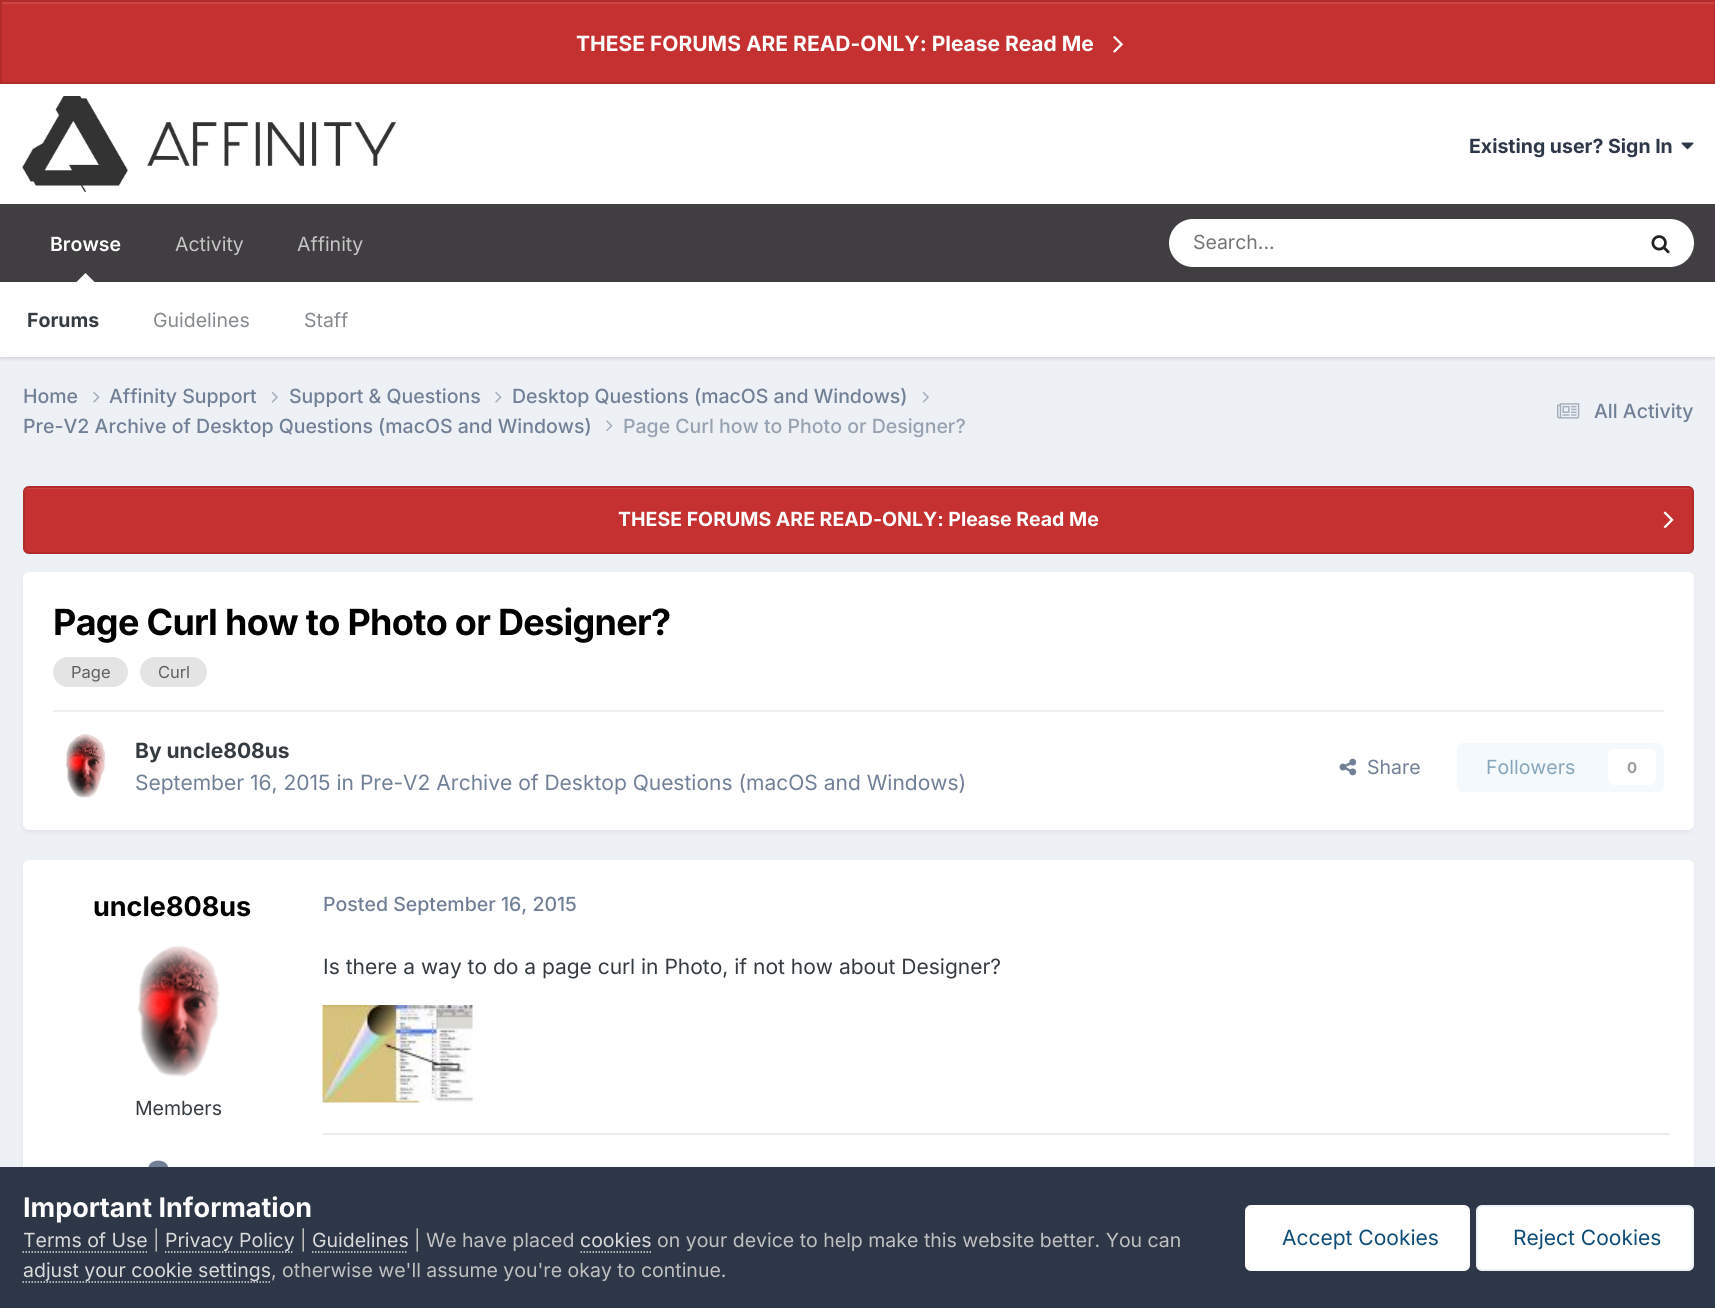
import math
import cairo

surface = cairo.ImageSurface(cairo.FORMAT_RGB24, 1715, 1308)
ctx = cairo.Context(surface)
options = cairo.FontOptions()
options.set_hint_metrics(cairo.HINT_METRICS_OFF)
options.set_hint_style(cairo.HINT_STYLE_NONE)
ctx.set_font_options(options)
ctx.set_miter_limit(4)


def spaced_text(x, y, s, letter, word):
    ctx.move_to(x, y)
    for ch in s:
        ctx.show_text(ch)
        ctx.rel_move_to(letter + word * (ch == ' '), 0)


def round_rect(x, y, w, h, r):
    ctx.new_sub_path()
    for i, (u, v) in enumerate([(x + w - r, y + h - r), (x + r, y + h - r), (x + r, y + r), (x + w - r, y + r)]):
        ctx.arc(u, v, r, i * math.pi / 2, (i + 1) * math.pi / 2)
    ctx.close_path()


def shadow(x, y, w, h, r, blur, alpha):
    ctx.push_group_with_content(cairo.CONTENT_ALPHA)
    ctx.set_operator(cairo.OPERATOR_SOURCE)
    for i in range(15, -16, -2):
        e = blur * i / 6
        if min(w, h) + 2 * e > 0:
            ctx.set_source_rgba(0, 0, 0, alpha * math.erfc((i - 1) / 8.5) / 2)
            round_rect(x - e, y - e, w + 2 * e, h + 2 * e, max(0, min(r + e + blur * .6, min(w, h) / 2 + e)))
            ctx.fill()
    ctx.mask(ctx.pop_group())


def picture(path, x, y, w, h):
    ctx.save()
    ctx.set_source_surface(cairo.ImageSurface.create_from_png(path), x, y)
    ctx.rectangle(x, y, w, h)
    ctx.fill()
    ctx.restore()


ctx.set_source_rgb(0.929, 0.941, 0.957)
ctx.paint()
ctx.set_source_rgb(0.773, 0.188, 0.188)
ctx.rectangle(0, 0, 1715, 84)
ctx.fill()
ctx.set_source_rgb(0.796, 0.271, 0.271)
ctx.rectangle(2, 2, 1713, 2)
ctx.fill()
ctx.rectangle(1, 1, 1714, 82)
ctx.set_source_rgba(0, 0, 0, 0.1)
ctx.stroke()
ctx.select_font_face("Inter", cairo.FONT_SLANT_NORMAL, cairo.FONT_WEIGHT_BOLD)
ctx.set_font_size(21)
ctx.set_source_rgb(1, 1, 1)
ctx.move_to(576, 51)
ctx.show_text("THESE FORUMS ARE READ-ONLY: Please Read Me")
picture("img1.png", 1113, 36, 10, 17)
ctx.rectangle(0, 84, 1715, 120)
ctx.fill()
picture("img2.png", 22, 96, 374, 96)
ctx.set_font_size(19.5)
ctx.set_source_rgb(0.176, 0.216, 0.282)
ctx.move_to(1469, 153)
ctx.show_text("Existing user? Sign In")
picture("img3.png", 1681, 142, 13, 8)
ctx.set_source_rgb(0.251, 0.243, 0.255)
ctx.rectangle(0, 204, 1715, 78)
ctx.fill()
ctx.select_font_face("Inter SemiBold")
ctx.set_source_rgb(1, 1, 1)
ctx.move_to(50, 251)
ctx.show_text("Browse")
ctx.set_source_rgb(0, 0, 0)
shadow(0, 284, 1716, 75, 0, 1.5, 0.1)
ctx.set_source_rgb(1, 1, 1)
ctx.new_path()
ctx.move_to(94.5, 282)
ctx.line_to(76.5, 282)
ctx.line_to(85.5, 273)
ctx.close_path()
ctx.fill()
ctx.rectangle(0, 282, 1715, 75)
ctx.fill()
ctx.select_font_face("Inter", cairo.FONT_SLANT_NORMAL, cairo.FONT_WEIGHT_BOLD)
ctx.set_source_rgb(0.208, 0.235, 0.255)
ctx.move_to(27, 327)
ctx.show_text("Forums")
ctx.select_font_face("Inter")
ctx.set_source_rgb(0.525, 0.541, 0.553)
ctx.move_to(153, 327)
ctx.show_text("Guidelines")
ctx.move_to(304, 327)
ctx.show_text("Staff")
ctx.set_source_rgb(0.776, 0.773, 0.776)
ctx.move_to(175, 251)
ctx.show_text("Activity")
ctx.move_to(297, 251)
ctx.show_text("Affinity")
ctx.set_source_rgb(1, 1, 1)
round_rect(1169, 219, 525, 48, 24)
ctx.fill()
ctx.set_source_rgb(0.459, 0.459, 0.459)
ctx.move_to(1193, 249)
ctx.show_text("Search...")
picture("img4.png", 1651, 235, 19, 19)
ctx.select_font_face("Inter Medium")
ctx.set_source_rgb(0.443, 0.502, 0.588)
ctx.move_to(23, 403)
ctx.show_text("Home")
picture("img5.png", 93, 392, 7, 11)
ctx.move_to(109, 403)
ctx.show_text("Affinity Support")
picture("img6.png", 271, 391, 7, 12)
ctx.move_to(289, 403)
ctx.show_text("Support & Questions")
picture("img5.png", 495, 392, 7, 11)
ctx.move_to(512, 403)
ctx.show_text("Desktop Questions (macOS and Windows)")
picture("img6.png", 922, 391, 7, 12)
ctx.move_to(23, 433)
ctx.show_text("Pre-V2 Archive of Desktop Questions (macOS and Windows)")
picture("img7.png", 606, 420, 7, 11)
ctx.set_source_rgb(0.588, 0.635, 0.698)
ctx.move_to(623, 433)
ctx.show_text("Page Curl how to Photo or Designer?")
picture("img8.png", 1557, 403, 23, 16)
ctx.set_source_rgb(0.443, 0.502, 0.588)
ctx.move_to(1594, 418)
ctx.show_text("All Activity")
ctx.set_source_rgb(0.773, 0.188, 0.188)
round_rect(23, 486, 1671, 68, 6)
ctx.fill()
ctx.set_source_rgb(0.796, 0.271, 0.271)
ctx.new_path()
ctx.move_to(28, 489)
ctx.line_to(1688, 489)
ctx.curve_to(1690, 489, 1692, 491, 1692, 494)
ctx.line_to(1692, 493)
ctx.curve_to(1692, 490, 1690, 488, 1687, 488)
ctx.line_to(29, 488)
ctx.curve_to(26, 488, 24, 490, 24, 493)
ctx.line_to(24, 494)
ctx.curve_to(24, 491, 26, 489, 28, 489)
ctx.close_path()
ctx.fill()
round_rect(24, 487, 1669, 66, 5)
ctx.set_source_rgba(0, 0, 0, 0.1)
ctx.stroke()
ctx.select_font_face("Inter", cairo.FONT_SLANT_NORMAL, cairo.FONT_WEIGHT_BOLD)
ctx.set_source_rgb(1, 1, 1)
ctx.move_to(618, 526)
ctx.show_text("THESE FORUMS ARE READ-ONLY: Please Read Me")
picture("img9.png", 1663, 511, 11, 18)
ctx.set_source_rgb(0.176, 0.216, 0.282)
shadow(24, 576, 1668, 255, 5, 3, 0.1)
ctx.set_source_rgb(1, 1, 1)
round_rect(23, 572, 1671, 258, 6)
ctx.fill()
ctx.set_font_size(36)
ctx.set_source_rgb(0, 0, 0)
spaced_text(53, 635, "Page Curl how to Photo or Designer?", -0.7, 0)
ctx.set_source_rgb(0.894, 0.894, 0.894)
round_rect(53, 657, 75, 30, 15)
ctx.fill()
ctx.select_font_face("Inter")
ctx.set_font_size(16.5)
ctx.set_source_rgb(0.376, 0.376, 0.376)
ctx.move_to(71, 678)
ctx.show_text("Page")
ctx.set_source_rgb(0.894, 0.894, 0.894)
round_rect(140, 657, 67, 30, 15)
ctx.fill()
ctx.set_source_rgb(0.376, 0.376, 0.376)
ctx.move_to(158, 678)
ctx.show_text("Curl")
ctx.set_source_rgb(0.937, 0.937, 0.941)
ctx.rectangle(53, 710, 1611, 2)
ctx.fill()
picture("img10.png", 65, 734, 41, 64)
ctx.select_font_face("Inter", cairo.FONT_SLANT_NORMAL, cairo.FONT_WEIGHT_BOLD)
ctx.set_font_size(21)
ctx.set_source_rgb(0.208, 0.235, 0.255)
ctx.move_to(135, 758)
ctx.show_text("By uncle808us")
ctx.select_font_face("Inter")
ctx.set_source_rgb(0.443, 0.502, 0.588)
ctx.move_to(135, 790)
ctx.show_text("September 16, 2015 in Pre-V2 Archive of Desktop Questions (macOS and Windows)")
picture("img11.png", 1339, 758, 18, 18)
ctx.set_font_size(19.5)
ctx.move_to(1367, 774)
ctx.show_text("Share")
ctx.set_source_rgb(0.957, 0.976, 0.992)
round_rect(1457, 743, 207, 49, 6)
ctx.fill()
ctx.set_source_rgb(0.529, 0.651, 0.737)
ctx.move_to(1486, 774)
ctx.show_text("Followers")
ctx.set_source_rgb(1, 1, 1)
round_rect(1608, 749, 48, 36, 6)
ctx.fill()
ctx.select_font_face("Inter", cairo.FONT_SLANT_NORMAL, cairo.FONT_WEIGHT_BOLD)
ctx.set_font_size(15)
ctx.set_source_rgb(0.604, 0.62, 0.627)
ctx.move_to(1627, 773)
ctx.show_text("0")
ctx.set_source_rgb(0.176, 0.216, 0.282)
shadow(24, 864, 1668, 380, 5, 3, 0.1)
ctx.set_source_rgb(1, 1, 1)
round_rect(23, 860, 1671, 382, 6)
ctx.fill()
ctx.set_font_size(27)
ctx.set_source_rgb(0, 0, 0)
ctx.move_to(93, 916)
ctx.show_text("uncle808us")
picture("img12.png", 137, 946, 83, 131)
ctx.select_font_face("Inter")
ctx.set_font_size(19.5)
ctx.set_source_rgb(0.208, 0.235, 0.255)
ctx.move_to(135, 1115)
ctx.show_text("Members")
picture("img13.png", 148, 1160, 20, 7)
ctx.select_font_face("Inter Medium")
ctx.set_source_rgb(0.443, 0.502, 0.588)
ctx.move_to(323, 911)
ctx.show_text("Posted September 16, 2015")
ctx.select_font_face("Inter")
ctx.set_font_size(21)
ctx.set_source_rgb(0.208, 0.235, 0.255)
ctx.move_to(323, 974)
ctx.show_text("Is there a way to do a page curl in Photo, if not how about Designer?")
picture("img14.png", 322, 1005, 151, 98)
ctx.set_source_rgb(0.918, 0.925, 0.937)
ctx.rectangle(323, 1133, 1347, 2)
ctx.fill()
ctx.set_source_rgb(0.176, 0.216, 0.282)
ctx.rectangle(0, 1167, 1715, 141)
ctx.fill()
ctx.select_font_face("Inter", cairo.FONT_SLANT_NORMAL, cairo.FONT_WEIGHT_BOLD)
ctx.set_font_size(27)
ctx.set_source_rgb(1, 1, 1)
ctx.move_to(23, 1217)
ctx.show_text("Important Information")
ctx.select_font_face("Inter")
ctx.set_font_size(19.5)
ctx.set_source_rgb(0.855, 0.855, 0.855)
ctx.move_to(23, 1247)
ctx.show_text("Terms of Use")
ctx.new_path()
ctx.move_to(22.5, 1252)
ctx.line_to(147, 1252)
ctx.set_line_width(1.5)
ctx.set_dash([1.5, 1.5])
ctx.stroke()
ctx.set_source_rgb(0.753, 0.753, 0.753)
ctx.move_to(153, 1247)
ctx.show_text("|")
ctx.new_path()
ctx.move_to(165, 1252)
ctx.line_to(294, 1252)
ctx.set_source_rgb(0.855, 0.855, 0.855)
ctx.stroke()
ctx.move_to(165, 1247)
ctx.show_text("Privacy Policy")
ctx.set_source_rgb(0.753, 0.753, 0.753)
ctx.move_to(300, 1247)
ctx.show_text("|")
ctx.set_source_rgb(0.855, 0.855, 0.855)
ctx.move_to(312, 1247)
ctx.show_text("Guidelines")
ctx.new_path()
ctx.move_to(312, 1252)
ctx.line_to(408, 1252)
ctx.stroke()
ctx.set_source_rgb(0.753, 0.753, 0.753)
ctx.move_to(414, 1247)
ctx.show_text("| We have placed")
ctx.set_source_rgb(0.855, 0.855, 0.855)
ctx.move_to(580, 1247)
ctx.show_text("cookies")
ctx.new_path()
ctx.move_to(580.5, 1252)
ctx.line_to(651, 1252)
ctx.stroke()
ctx.set_source_rgb(0.753, 0.753, 0.753)
ctx.move_to(657, 1247)
ctx.show_text("on your device to help make this website better. You can")
ctx.new_path()
ctx.move_to(22.5, 1282)
ctx.line_to(270, 1282)
ctx.set_source_rgb(0.855, 0.855, 0.855)
ctx.stroke()
ctx.move_to(23, 1277)
ctx.show_text("adjust your cookie settings")
ctx.set_source_rgb(0.753, 0.753, 0.753)
ctx.move_to(271, 1277)
ctx.show_text(", otherwise we'll assume you're okay to continue.")
ctx.set_source_rgb(1, 1, 1)
round_rect(1245, 1205, 225, 66, 6)
ctx.fill()
ctx.set_font_size(21)
ctx.set_source_rgb(0.055, 0.298, 0.475)
ctx.move_to(1282, 1245)
ctx.show_text("Accept Cookies")
ctx.set_source_rgb(1, 1, 1)
round_rect(1476, 1205, 218, 66, 6)
ctx.fill()
round_rect(1477, 1206, 216, 64, 5)
ctx.set_source_rgba(0.055, 0.298, 0.475, 0.07)
ctx.set_line_width(2)
ctx.set_dash([])
ctx.stroke()
ctx.set_source_rgb(0.055, 0.298, 0.475)
ctx.move_to(1513, 1245)
ctx.show_text("Reject Cookies")
surface.write_to_png("page.png")
